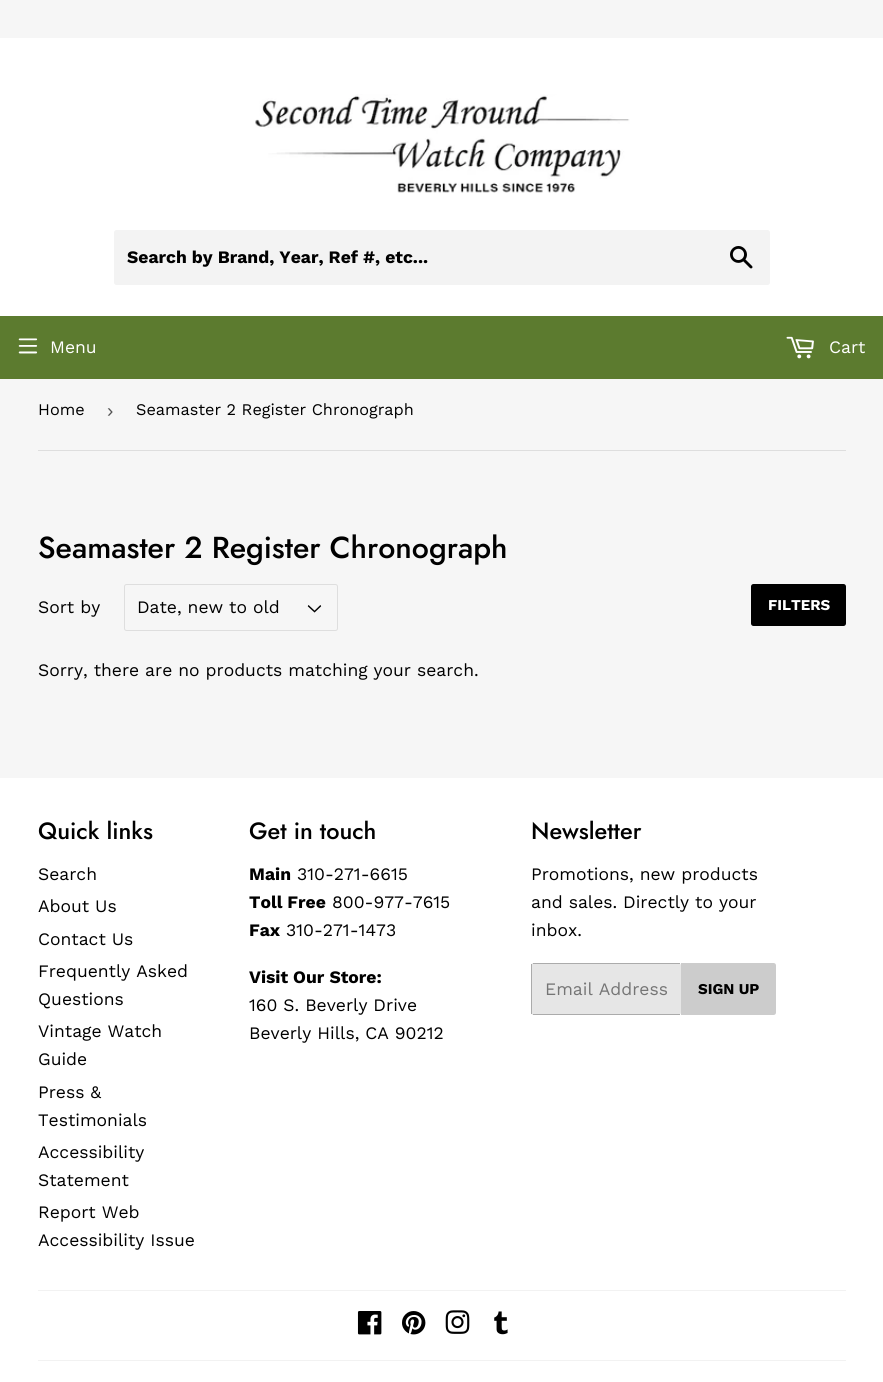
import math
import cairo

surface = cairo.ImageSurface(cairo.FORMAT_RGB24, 883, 1382)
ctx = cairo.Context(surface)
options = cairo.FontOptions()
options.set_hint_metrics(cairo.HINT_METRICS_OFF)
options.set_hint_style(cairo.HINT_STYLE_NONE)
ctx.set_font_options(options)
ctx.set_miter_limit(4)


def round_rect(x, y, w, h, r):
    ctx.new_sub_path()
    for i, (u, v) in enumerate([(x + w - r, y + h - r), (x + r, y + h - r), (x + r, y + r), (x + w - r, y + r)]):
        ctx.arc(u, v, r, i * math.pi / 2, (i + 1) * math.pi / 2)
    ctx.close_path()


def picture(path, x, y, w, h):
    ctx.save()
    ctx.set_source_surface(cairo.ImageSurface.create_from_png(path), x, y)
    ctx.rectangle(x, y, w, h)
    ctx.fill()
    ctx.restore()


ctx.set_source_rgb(0.961, 0.961, 0.961)
ctx.paint()
ctx.set_source_rgb(1, 1, 1)
ctx.rectangle(0, 38, 883, 278)
ctx.fill()
picture("img1.png", 255, 94, 375, 99)
ctx.set_source_rgb(0.953, 0.953, 0.953)
round_rect(114, 230, 656, 55, 2.5)
ctx.fill()
ctx.select_font_face("Work Sans", cairo.FONT_SLANT_NORMAL, cairo.FONT_WEIGHT_BOLD)
ctx.set_font_size(17.5)
ctx.set_source_rgb(0, 0, 0)
ctx.move_to(127, 263)
ctx.show_text("Search by Brand, Year, Ref #, etc...")
picture("img2.png", 730, 246, 23, 23)
ctx.set_source_rgb(0.361, 0.482, 0.184)
ctx.rectangle(0, 316, 883, 63)
ctx.fill()
picture("img3.png", 18, 338, 20, 16)
ctx.select_font_face("Work Sans")
ctx.set_source_rgb(1, 1, 1)
ctx.move_to(50, 353)
ctx.show_text("Menu")
picture("img4.png", 786, 336, 28, 23)
ctx.move_to(829, 353)
ctx.show_text("Cart")
ctx.set_source_rgb(0.871, 0.871, 0.871)
ctx.rectangle(38, 450, 808, 1)
ctx.fill()
ctx.set_font_size(16.25)
ctx.set_source_rgb(0, 0, 0)
ctx.move_to(38, 415)
ctx.show_text("Home")
ctx.select_font_face("Liberation Sans")
ctx.set_font_size(19)
ctx.set_source_rgb(0.329, 0.329, 0.329)
ctx.move_to(107, 417)
ctx.show_text("›")
ctx.select_font_face("Work Sans")
ctx.set_font_size(16.25)
ctx.set_source_rgb(0, 0, 0)
ctx.move_to(136, 415)
ctx.show_text("Seamaster 2 Register Chronograph")
ctx.select_font_face("Jost Medium")
ctx.set_font_size(30.3)
ctx.move_to(38, 558)
ctx.show_text("Seamaster 2 Register Chronograph")
ctx.select_font_face("Work Sans")
ctx.set_font_size(17.5)
ctx.move_to(38, 613)
ctx.show_text("Sort by")
picture("img5.png", 307, 605, 15, 8)
round_rect(124.5, 584.5, 213, 46, 2)
ctx.set_source_rgb(0.871, 0.871, 0.871)
ctx.set_line_width(1)
ctx.stroke()
ctx.set_source_rgb(0, 0, 0)
ctx.move_to(137, 613)
ctx.show_text("Date, new to old")
round_rect(751, 584, 95, 42, 2.5)
ctx.fill()
ctx.select_font_face("Work Sans", cairo.FONT_SLANT_NORMAL, cairo.FONT_WEIGHT_BOLD)
ctx.set_font_size(15)
ctx.set_source_rgb(1, 1, 1)
ctx.move_to(768, 610)
ctx.show_text("FILTERS")
ctx.select_font_face("Work Sans")
ctx.set_font_size(17.5)
ctx.set_source_rgb(0, 0, 0)
ctx.move_to(38, 676)
ctx.show_text("Sorry, there are no products matching your search.")
ctx.set_source_rgb(1, 1, 1)
ctx.rectangle(0, 778, 883, 604)
ctx.fill()
ctx.select_font_face("Jost Medium")
ctx.set_font_size(23.5)
ctx.set_source_rgb(0, 0, 0)
ctx.move_to(38, 839)
ctx.show_text("Quick links")
ctx.select_font_face("Work Sans")
ctx.set_font_size(17.5)
ctx.move_to(38, 880)
ctx.show_text("Search")
ctx.move_to(38, 912)
ctx.show_text("About Us")
ctx.move_to(38, 945)
ctx.show_text("Contact Us")
ctx.move_to(38, 977)
ctx.show_text("Frequently Asked")
ctx.move_to(38, 1005)
ctx.show_text("Questions")
ctx.move_to(38, 1037)
ctx.show_text("Vintage Watch")
ctx.move_to(38, 1065)
ctx.show_text("Guide")
ctx.move_to(38, 1098)
ctx.show_text("Press &")
ctx.move_to(38, 1126)
ctx.show_text("Testimonials")
ctx.move_to(38, 1158)
ctx.show_text("Accessibility")
ctx.move_to(38, 1186)
ctx.show_text("Statement")
ctx.move_to(38, 1218)
ctx.show_text("Report Web")
ctx.move_to(38, 1246)
ctx.show_text("Accessibility Issue")
ctx.select_font_face("Jost Medium")
ctx.set_font_size(23.5)
ctx.move_to(249, 839)
ctx.show_text("Get in touch")
ctx.select_font_face("Work Sans", cairo.FONT_SLANT_NORMAL, cairo.FONT_WEIGHT_BOLD)
ctx.set_font_size(17.5)
ctx.move_to(249, 880)
ctx.show_text("Main")
ctx.select_font_face("Work Sans")
ctx.move_to(297, 880)
ctx.show_text("310-271-6615")
ctx.select_font_face("Work Sans", cairo.FONT_SLANT_NORMAL, cairo.FONT_WEIGHT_BOLD)
ctx.move_to(249, 908)
ctx.show_text("Toll Free")
ctx.select_font_face("Work Sans")
ctx.move_to(332, 908)
ctx.show_text("800-977-7615")
ctx.select_font_face("Work Sans", cairo.FONT_SLANT_NORMAL, cairo.FONT_WEIGHT_BOLD)
ctx.move_to(249, 936)
ctx.show_text("Fax")
ctx.select_font_face("Work Sans")
ctx.move_to(286, 936)
ctx.show_text("310-271-1473")
ctx.select_font_face("Work Sans", cairo.FONT_SLANT_NORMAL, cairo.FONT_WEIGHT_BOLD)
ctx.move_to(249, 983)
ctx.show_text("Visit Our Store:")
ctx.select_font_face("Work Sans")
ctx.move_to(249, 1011)
ctx.show_text("160 S. Beverly Drive")
ctx.move_to(249, 1039)
ctx.show_text("Beverly Hills, CA 90212")
ctx.select_font_face("Jost Medium")
ctx.set_font_size(23.5)
ctx.move_to(531, 839)
ctx.show_text("Newsletter")
ctx.select_font_face("Work Sans")
ctx.set_font_size(17.5)
ctx.move_to(531, 880)
ctx.show_text("Promotions, new products")
ctx.move_to(531, 908)
ctx.show_text("and sales. Directly to your")
ctx.move_to(531, 936)
ctx.show_text("inbox.")
ctx.set_source_rgb(0.902, 0.902, 0.902)
round_rect(531, 963, 150, 52, 2.5)
ctx.fill()
ctx.set_source_rgb(0.671, 0.671, 0.671)
ctx.rectangle(533, 963, 147, 1)
ctx.fill()
ctx.rectangle(533, 1014, 147, 1)
ctx.fill()
ctx.rectangle(531, 964, 1, 50)
ctx.fill()
ctx.set_source_rgb(0.459, 0.459, 0.459)
ctx.move_to(545, 995)
ctx.show_text("Email Address")
ctx.set_source_rgb(0.8, 0.8, 0.8)
ctx.new_path()
ctx.move_to(681, 963)
ctx.line_to(773.5, 963)
ctx.curve_to(775, 963, 776, 964, 776, 965.5)
ctx.line_to(776, 1012.5)
ctx.curve_to(776, 1014, 775, 1015, 773.5, 1015)
ctx.line_to(681, 1015)
ctx.close_path()
ctx.fill()
ctx.select_font_face("Work Sans", cairo.FONT_SLANT_NORMAL, cairo.FONT_WEIGHT_BOLD)
ctx.set_font_size(15)
ctx.set_source_rgb(0, 0, 0)
ctx.move_to(698, 994)
ctx.show_text("SIGN UP")
ctx.set_source_rgb(0.949, 0.949, 0.949)
ctx.rectangle(38, 1290, 808, 1)
ctx.fill()
picture("img6.png", 357, 1311, 25, 24)
picture("img7.png", 402, 1311, 24, 24)
picture("img8.png", 445, 1310, 25, 24)
picture("img9.png", 494, 1311, 14, 24)
ctx.rectangle(38, 1360, 808, 1)
ctx.fill()
surface.write_to_png("page.png")
